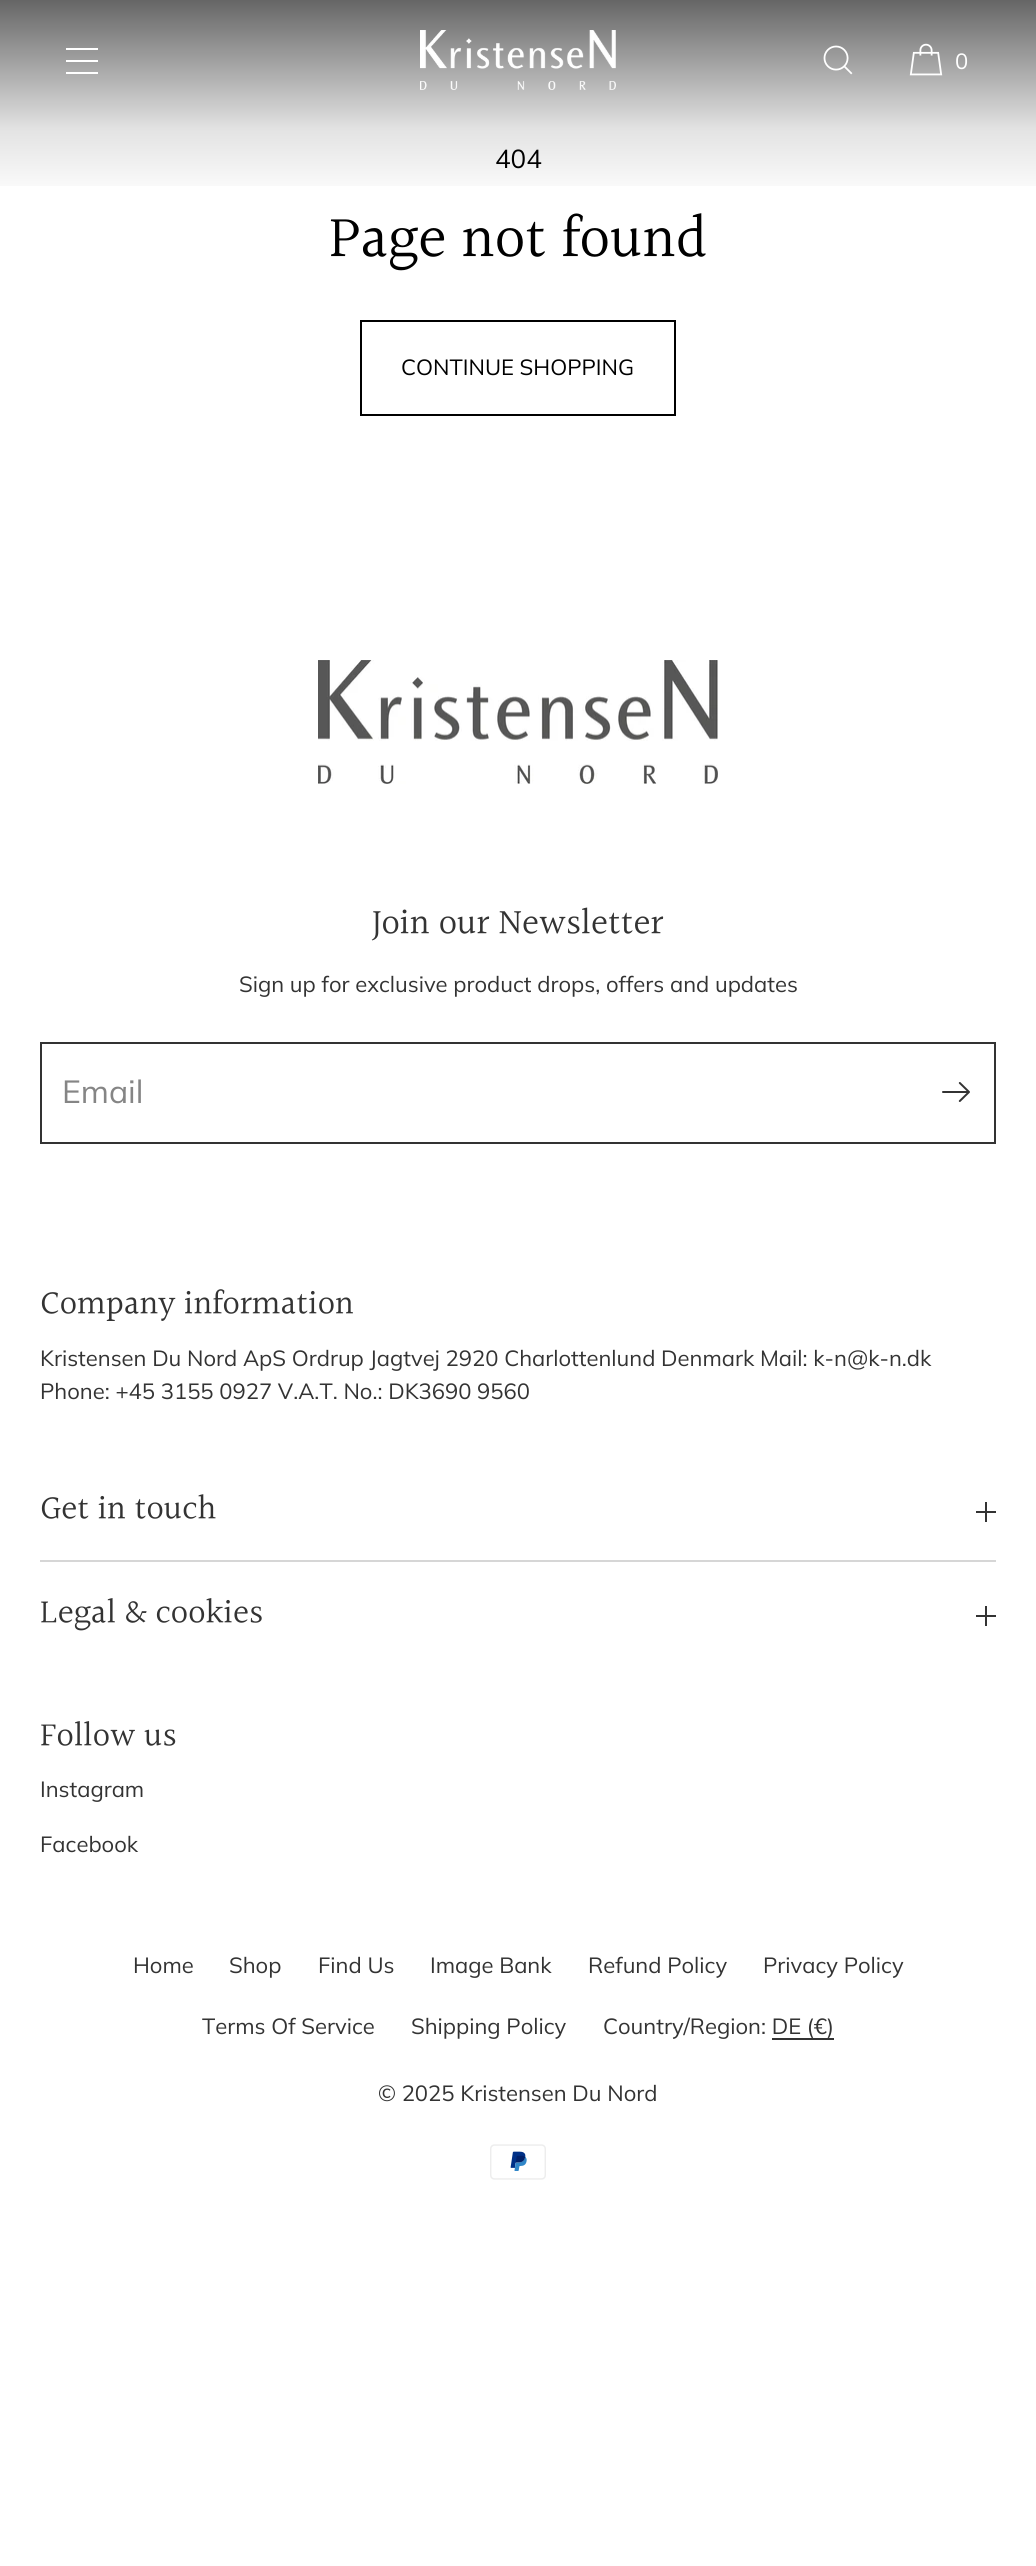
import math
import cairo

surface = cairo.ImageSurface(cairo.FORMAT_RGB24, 1036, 2566)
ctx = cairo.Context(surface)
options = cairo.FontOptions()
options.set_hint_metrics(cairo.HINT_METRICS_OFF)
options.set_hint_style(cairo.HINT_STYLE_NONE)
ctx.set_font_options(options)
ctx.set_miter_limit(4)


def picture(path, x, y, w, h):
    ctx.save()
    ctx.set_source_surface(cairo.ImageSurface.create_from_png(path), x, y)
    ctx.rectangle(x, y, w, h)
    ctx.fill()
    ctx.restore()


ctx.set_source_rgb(1, 1, 1)
ctx.paint()
ctx.select_font_face("Muli")
ctx.set_font_size(26)
ctx.set_source_rgb(0, 0, 0)
ctx.move_to(495, 168)
ctx.show_text("404")
gradient = cairo.LinearGradient(518, 200, 518, 0)
gradient.add_color_stop_rgba(0, 0, 0, 0, 0)
gradient.add_color_stop_rgba(0.35, 0, 0, 0, 0.11)
gradient.add_color_stop_rgba(1, 0, 0, 0, 0.6)
ctx.set_source(gradient)
ctx.rectangle(0, 0, 1036, 186)
ctx.fill()
ctx.set_source_rgb(1, 1, 1)
ctx.rectangle(66, 48, 32, 2)
ctx.fill()
ctx.rectangle(66, 60, 32, 2)
ctx.fill()
ctx.rectangle(66, 72, 32, 2)
ctx.fill()
picture("img1.png", 420, 30, 196, 60)
picture("img2.png", 823, 45, 30, 30)
picture("img3.png", 909, 43, 34, 33)
ctx.set_font_size(22)
ctx.move_to(955, 69)
ctx.show_text("0")
ctx.select_font_face("Halant")
ctx.set_font_size(60)
ctx.set_source_rgb(0, 0, 0)
ctx.move_to(329, 259)
ctx.show_text("Page not found")
ctx.rectangle(361, 321, 314, 94)
ctx.stroke()
ctx.select_font_face("Muli")
ctx.set_font_size(22)
ctx.move_to(401, 375)
ctx.show_text("CONTINUE SHOPPING")
picture("img4.png", 318, 660, 400, 124)
ctx.select_font_face("Halant")
ctx.set_font_size(36)
ctx.set_source_rgb(0.2, 0.2, 0.2)
ctx.move_to(372, 935)
ctx.show_text("Join our Newsletter")
ctx.select_font_face("Muli")
ctx.set_font_size(22)
ctx.move_to(239, 992)
ctx.show_text("Sign up for exclusive product drops, offers and updates")
ctx.rectangle(41, 1043, 954, 100)
ctx.stroke()
ctx.set_font_size(32)
ctx.set_source_rgb(0.522, 0.522, 0.522)
ctx.move_to(62, 1103)
ctx.show_text("Email")
picture("img5.png", 942, 1082, 28, 20)
ctx.select_font_face("Halant")
ctx.set_font_size(34)
ctx.set_source_rgb(0.2, 0.2, 0.2)
ctx.move_to(40, 1315)
ctx.show_text("Company information")
ctx.select_font_face("Muli")
ctx.set_font_size(22)
ctx.move_to(40, 1366)
ctx.show_text("Kristensen Du Nord ApS Ordrup Jagtvej 2920 Charlottenlund Denmark Mail: k-n@k-n.dk")
ctx.move_to(40, 1399)
ctx.show_text("Phone: +45 3155 0927 V.A.T. No.: DK3690 9560")
ctx.set_source_rgb(0.839, 0.839, 0.839)
ctx.rectangle(40, 1560, 956, 2)
ctx.fill()
ctx.select_font_face("Halant")
ctx.set_font_size(34)
ctx.set_source_rgb(0.2, 0.2, 0.2)
ctx.move_to(40, 1520)
ctx.show_text("Get in touch")
picture("img6.png", 976, 1502, 20, 20)
ctx.move_to(40, 1624)
ctx.show_text("Legal & cookies")
picture("img6.png", 976, 1606, 20, 20)
ctx.move_to(40, 1747)
ctx.show_text("Follow us")
ctx.select_font_face("Muli")
ctx.set_font_size(22)
ctx.move_to(40, 1797)
ctx.show_text("Instagram")
ctx.move_to(40, 1852)
ctx.show_text("Facebook")
ctx.move_to(133, 1973)
ctx.show_text("Home")
ctx.move_to(229, 1973)
ctx.show_text("Shop")
ctx.move_to(318, 1973)
ctx.show_text("Find Us")
ctx.move_to(430, 1973)
ctx.show_text("Image Bank")
ctx.move_to(588, 1973)
ctx.show_text("Refund Policy")
ctx.move_to(763, 1973)
ctx.show_text("Privacy Policy")
ctx.move_to(202, 2034)
ctx.show_text("Terms Of Service")
ctx.move_to(411, 2034)
ctx.show_text("Shipping Policy")
ctx.move_to(603, 2034)
ctx.show_text("Country/Region: DE (€)")
ctx.rectangle(772, 2038, 62, 2)
ctx.fill()
ctx.move_to(378, 2101)
ctx.show_text("© 2025 Kristensen Du Nord")
picture("img7.png", 490, 2144, 56, 36)
surface.write_to_png("page.png")
